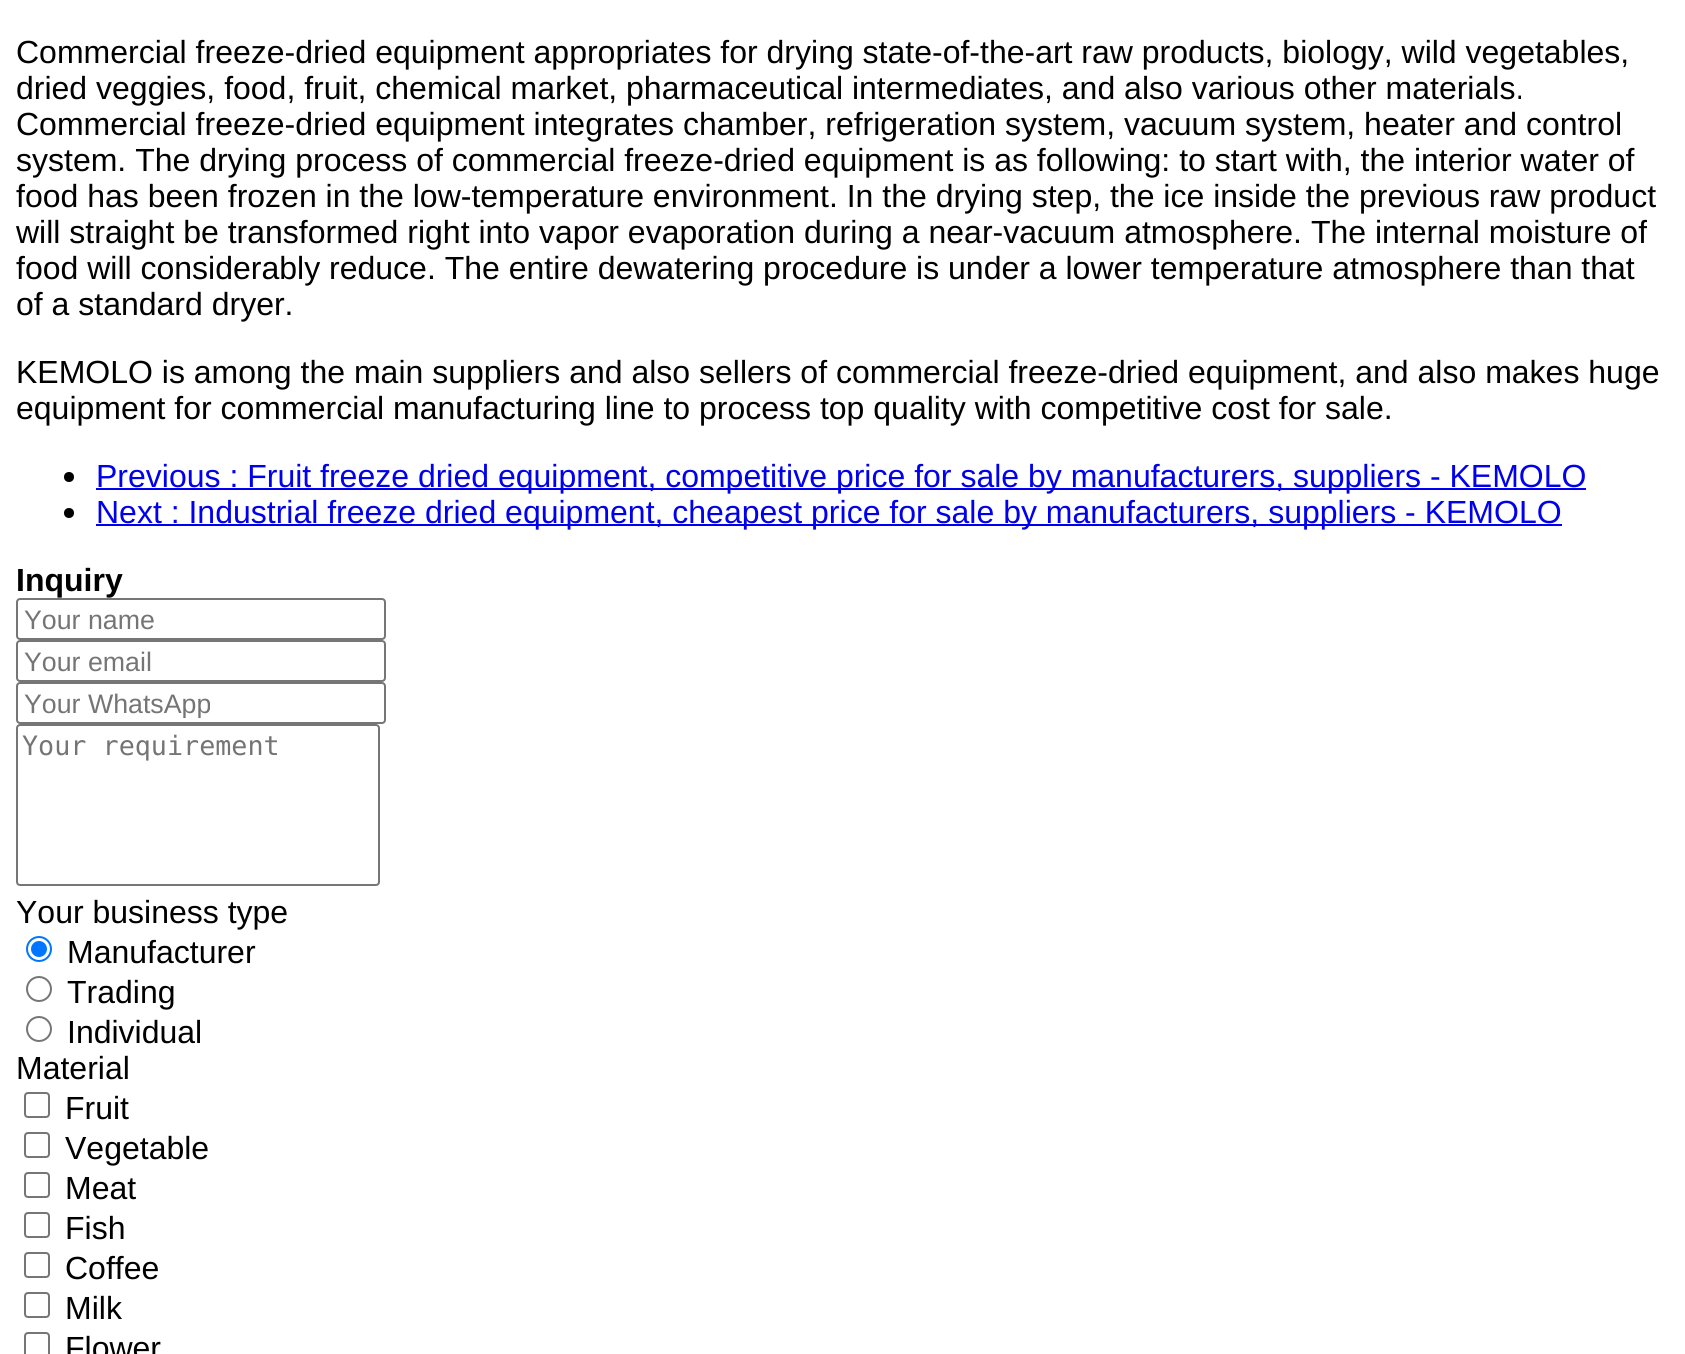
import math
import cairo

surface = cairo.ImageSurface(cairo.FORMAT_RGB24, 1685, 1354)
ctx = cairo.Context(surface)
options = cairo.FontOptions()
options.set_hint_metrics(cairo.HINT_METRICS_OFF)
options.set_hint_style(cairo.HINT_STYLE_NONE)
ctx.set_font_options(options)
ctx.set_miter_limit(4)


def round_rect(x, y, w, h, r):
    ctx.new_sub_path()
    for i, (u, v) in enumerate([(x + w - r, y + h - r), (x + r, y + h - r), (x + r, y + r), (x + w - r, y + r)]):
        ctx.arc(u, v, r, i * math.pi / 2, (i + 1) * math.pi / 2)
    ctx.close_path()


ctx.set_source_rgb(1, 1, 1)
ctx.paint()
ctx.select_font_face("Liberation Sans")
ctx.set_font_size(32)
ctx.set_source_rgb(0, 0, 0)
ctx.move_to(16, 63)
ctx.show_text("Commercial freeze-dried equipment appropriates for drying state-of-the-art raw products, biology, wild vegetables,")
ctx.move_to(16, 99)
ctx.show_text("dried veggies, food, fruit, chemical market, pharmaceutical intermediates, and also various other materials.")
ctx.move_to(16, 135)
ctx.show_text("Commercial freeze-dried equipment integrates chamber, refrigeration system, vacuum system, heater and control")
ctx.move_to(16, 171)
ctx.show_text("system. The drying process of commercial freeze-dried equipment is as following: to start with, the interior water of")
ctx.move_to(16, 207)
ctx.show_text("food has been frozen in the low-temperature environment. In the drying step, the ice inside the previous raw product")
ctx.move_to(16, 243)
ctx.show_text("will straight be transformed right into vapor evaporation during a near-vacuum atmosphere. The internal moisture of")
ctx.move_to(16, 279)
ctx.show_text("food will considerably reduce. The entire dewatering procedure is under a lower temperature atmosphere than that")
ctx.move_to(16, 315)
ctx.show_text("of a standard dryer.")
ctx.move_to(16, 383)
ctx.show_text("KEMOLO is among the main suppliers and also sellers of commercial freeze-dried equipment, and also makes huge")
ctx.move_to(16, 419)
ctx.show_text("equipment for commercial manufacturing line to process top quality with competitive cost for sale.")
ctx.new_path()
ctx.arc(69, 477, 5, 0, 2 * math.pi)
ctx.fill()
ctx.set_source_rgb(0, 0, 0.933)
ctx.rectangle(96, 488, 1490, 2)
ctx.fill()
ctx.move_to(96, 487)
ctx.show_text("Previous : Fruit freeze dried equipment, competitive price for sale by manufacturers, suppliers - KEMOLO")
ctx.set_source_rgb(0, 0, 0)
ctx.new_path()
ctx.arc(69, 513, 5, 0, 2 * math.pi)
ctx.fill()
ctx.set_source_rgb(0, 0, 0.933)
ctx.rectangle(96, 524, 1466, 2)
ctx.fill()
ctx.move_to(96, 523)
ctx.show_text("Next : Industrial freeze dried equipment, cheapest price for sale by manufacturers, suppliers - KEMOLO")
ctx.select_font_face("Liberation Sans", cairo.FONT_SLANT_NORMAL, cairo.FONT_WEIGHT_BOLD)
ctx.set_source_rgb(0, 0, 0)
ctx.move_to(16, 591)
ctx.show_text("Inquiry")
round_rect(17, 599, 368, 40, 3)
ctx.set_source_rgb(0.463, 0.463, 0.463)
ctx.stroke()
ctx.select_font_face("Liberation Sans")
ctx.set_font_size(26.75)
ctx.set_source_rgb(0.459, 0.459, 0.459)
ctx.move_to(24, 629)
ctx.show_text("Your name")
round_rect(17, 641, 368, 40, 3)
ctx.set_source_rgb(0.463, 0.463, 0.463)
ctx.stroke()
ctx.set_source_rgb(0.459, 0.459, 0.459)
ctx.move_to(24, 671)
ctx.show_text("Your email")
round_rect(17, 683, 368, 40, 3)
ctx.set_source_rgb(0.463, 0.463, 0.463)
ctx.stroke()
ctx.save()
ctx.rectangle(24, 688, 354, 30)
ctx.clip()
ctx.set_source_rgb(0.459, 0.459, 0.459)
ctx.move_to(24, 713)
ctx.show_text("Your WhatsApp")
ctx.restore()
round_rect(17, 725, 362, 160, 3)
ctx.stroke()
ctx.select_font_face("DejaVu Sans Mono")
ctx.set_source_rgb(0.459, 0.459, 0.459)
ctx.move_to(22, 755)
ctx.show_text("Your requirement")
ctx.select_font_face("Liberation Sans")
ctx.set_font_size(32)
ctx.set_source_rgb(0, 0, 0)
ctx.move_to(16, 923)
ctx.show_text("Your business type")
ctx.new_path()
ctx.arc(39, 949, 12, 0, 2 * math.pi)
ctx.set_source_rgb(0, 0.459, 1)
ctx.stroke()
ctx.arc(39, 949, 8, 0, 2 * math.pi)
ctx.fill()
ctx.set_source_rgb(0, 0, 0)
ctx.move_to(67, 963)
ctx.show_text("Manufacturer")
ctx.new_path()
ctx.arc(39, 989, 12, 0, 2 * math.pi)
ctx.set_source_rgb(0.463, 0.463, 0.463)
ctx.stroke()
ctx.set_source_rgb(0, 0, 0)
ctx.move_to(67, 1003)
ctx.show_text("Trading")
ctx.new_path()
ctx.arc(39, 1029, 12, 0, 2 * math.pi)
ctx.set_source_rgb(0.463, 0.463, 0.463)
ctx.stroke()
ctx.set_source_rgb(0, 0, 0)
ctx.move_to(67, 1043)
ctx.show_text("Individual")
ctx.move_to(16, 1079)
ctx.show_text("Material")
round_rect(25, 1093, 24, 24, 3)
ctx.set_source_rgb(0.463, 0.463, 0.463)
ctx.stroke()
ctx.set_source_rgb(0, 0, 0)
ctx.move_to(65, 1119)
ctx.show_text("Fruit")
round_rect(25, 1133, 24, 24, 3)
ctx.set_source_rgb(0.463, 0.463, 0.463)
ctx.stroke()
ctx.set_source_rgb(0, 0, 0)
ctx.move_to(65, 1159)
ctx.show_text("Vegetable")
round_rect(25, 1173, 24, 24, 3)
ctx.set_source_rgb(0.463, 0.463, 0.463)
ctx.stroke()
ctx.set_source_rgb(0, 0, 0)
ctx.move_to(65, 1199)
ctx.show_text("Meat")
round_rect(25, 1213, 24, 24, 3)
ctx.set_source_rgb(0.463, 0.463, 0.463)
ctx.stroke()
ctx.set_source_rgb(0, 0, 0)
ctx.move_to(65, 1239)
ctx.show_text("Fish")
round_rect(25, 1253, 24, 24, 3)
ctx.set_source_rgb(0.463, 0.463, 0.463)
ctx.stroke()
ctx.set_source_rgb(0, 0, 0)
ctx.move_to(65, 1279)
ctx.show_text("Coffee")
round_rect(25, 1293, 24, 24, 3)
ctx.set_source_rgb(0.463, 0.463, 0.463)
ctx.stroke()
ctx.set_source_rgb(0, 0, 0)
ctx.move_to(65, 1319)
ctx.show_text("Milk")
round_rect(25, 1333, 24, 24, 3)
ctx.set_source_rgb(0.463, 0.463, 0.463)
ctx.stroke()
ctx.set_source_rgb(0, 0, 0)
ctx.move_to(65, 1359)
ctx.show_text("Flower")
surface.write_to_png("page.png")
